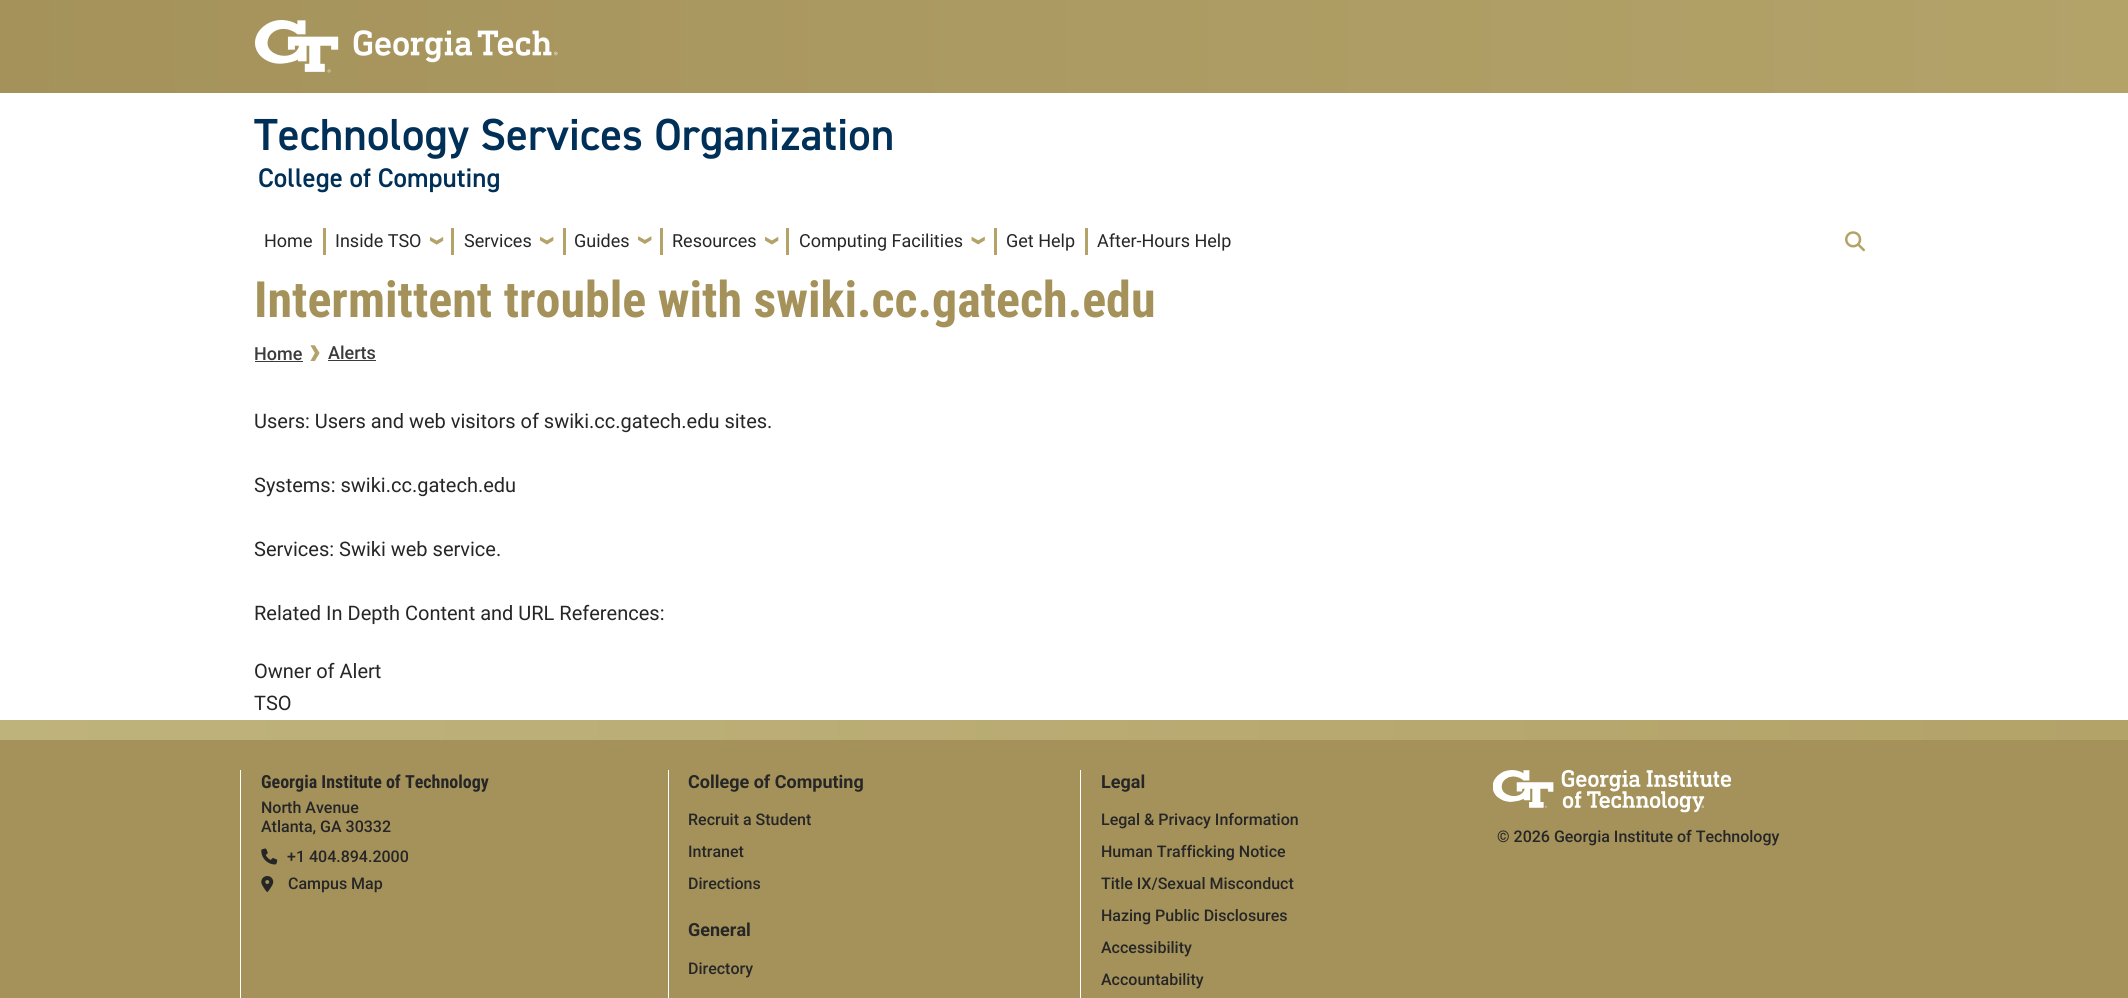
import math
import cairo

surface = cairo.ImageSurface(cairo.FORMAT_RGB24, 2128, 998)
ctx = cairo.Context(surface)
options = cairo.FontOptions()
options.set_hint_metrics(cairo.HINT_METRICS_OFF)
options.set_hint_style(cairo.HINT_STYLE_NONE)
ctx.set_font_options(options)
ctx.set_miter_limit(4)


def picture(path, x, y, w, h):
    ctx.save()
    ctx.set_source_surface(cairo.ImageSurface.create_from_png(path), x, y)
    ctx.rectangle(x, y, w, h)
    ctx.fill()
    ctx.restore()


ctx.set_source_rgb(1, 1, 1)
ctx.paint()
gradient = cairo.LinearGradient(0, 46, 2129, 46)
gradient.add_color_stop_rgba(0, 0.643, 0.573, 0.353, 1)
gradient.add_color_stop_rgba(1, 0.702, 0.639, 0.412, 1)
ctx.set_source(gradient)
ctx.rectangle(0, 0, 2128, 93)
ctx.fill()
picture("img1.png", 255, 20, 303, 53)
ctx.select_font_face("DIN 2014 SemiBold")
ctx.set_font_size(45)
ctx.set_source_rgb(0, 0.188, 0.341)
ctx.move_to(254, 150)
ctx.show_text("Technology Services Organization")
ctx.set_font_size(27)
ctx.move_to(258, 187)
ctx.show_text("College of Computing")
ctx.set_source_rgb(0.702, 0.639, 0.412)
ctx.rectangle(323, 228, 3, 27)
ctx.fill()
ctx.select_font_face("Roboto")
ctx.set_font_size(18)
ctx.set_source_rgb(0.149, 0.149, 0.149)
ctx.move_to(264, 247)
ctx.show_text("Home")
ctx.set_source_rgb(0.702, 0.639, 0.412)
ctx.rectangle(451, 228, 3, 27)
ctx.fill()
ctx.set_source_rgb(0.149, 0.149, 0.149)
ctx.move_to(335, 247)
ctx.show_text("Inside TSO")
picture("img2.png", 430, 237, 14, 8)
ctx.set_source_rgb(0.702, 0.639, 0.412)
ctx.rectangle(563, 228, 3, 27)
ctx.fill()
ctx.set_source_rgb(0.149, 0.149, 0.149)
ctx.move_to(464, 247)
ctx.show_text("Services")
picture("img3.png", 540, 236, 14, 9)
ctx.set_source_rgb(0.702, 0.639, 0.412)
ctx.rectangle(660, 228, 3, 27)
ctx.fill()
ctx.set_source_rgb(0.149, 0.149, 0.149)
ctx.move_to(574, 247)
ctx.show_text("Guides")
picture("img4.png", 638, 236, 14, 8)
ctx.set_source_rgb(0.702, 0.639, 0.412)
ctx.rectangle(786, 228, 3, 27)
ctx.fill()
ctx.set_source_rgb(0.149, 0.149, 0.149)
ctx.move_to(672, 247)
ctx.show_text("Resources")
picture("img5.png", 765, 236, 14, 9)
ctx.set_source_rgb(0.702, 0.639, 0.412)
ctx.rectangle(994, 228, 3, 27)
ctx.fill()
ctx.set_source_rgb(0.149, 0.149, 0.149)
ctx.move_to(799, 247)
ctx.show_text("Computing Facilities")
picture("img6.png", 971, 236, 14, 9)
ctx.set_source_rgb(0.702, 0.639, 0.412)
ctx.rectangle(1085, 228, 3, 27)
ctx.fill()
ctx.set_source_rgb(0.149, 0.149, 0.149)
ctx.move_to(1006, 247)
ctx.show_text("Get Help")
ctx.move_to(1097, 247)
ctx.show_text("After-Hours Help")
picture("img7.png", 1845, 231, 20, 21)
ctx.select_font_face("Roboto Condensed", cairo.FONT_SLANT_NORMAL, cairo.FONT_WEIGHT_BOLD)
ctx.set_font_size(50)
ctx.set_source_rgb(0.643, 0.573, 0.353)
ctx.move_to(254, 317)
ctx.show_text("Intermittent trouble with swiki.cc.gatech.edu")
ctx.select_font_face("Roboto Medium")
ctx.set_font_size(18)
ctx.set_source_rgb(0.231, 0.231, 0.231)
ctx.move_to(254, 360)
ctx.show_text("Home")
ctx.rectangle(255, 361, 48, 1)
ctx.fill()
picture("img8.png", 310, 345, 10, 16)
ctx.move_to(328, 359)
ctx.show_text("Alerts")
ctx.rectangle(328, 360, 48, 1)
ctx.fill()
ctx.select_font_face("Roboto")
ctx.set_font_size(20)
ctx.set_source_rgb(0.149, 0.149, 0.149)
ctx.move_to(254, 428)
ctx.show_text("Users: Users and web visitors of swiki.cc.gatech.edu sites.")
ctx.move_to(254, 492)
ctx.show_text("Systems: swiki.cc.gatech.edu")
ctx.move_to(254, 556)
ctx.show_text("Services: Swiki web service.")
ctx.move_to(254, 620)
ctx.show_text("Related In Depth Content and URL References:")
ctx.move_to(254, 678)
ctx.show_text("Owner of Alert")
ctx.move_to(254, 710)
ctx.show_text("TSO")
gradient = cairo.LinearGradient(0, 730, 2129, 730)
gradient.add_color_stop_rgba(0, 0.749, 0.702, 0.486, 1)
gradient.add_color_stop_rgba(1, 0.702, 0.639, 0.412, 1)
ctx.set_source(gradient)
ctx.rectangle(0, 720, 2128, 20)
ctx.fill()
ctx.set_source_rgb(0.643, 0.573, 0.353)
ctx.rectangle(0, 740, 2128, 258)
ctx.fill()
ctx.set_source_rgb(1, 1, 1)
ctx.rectangle(240, 770, 1, 228)
ctx.fill()
ctx.select_font_face("Roboto Condensed", cairo.FONT_SLANT_NORMAL, cairo.FONT_WEIGHT_BOLD)
ctx.set_font_size(18)
ctx.set_source_rgb(0.149, 0.149, 0.149)
ctx.move_to(261, 788)
ctx.show_text("Georgia Institute of Technology")
ctx.select_font_face("Roboto Medium")
ctx.set_font_size(16)
ctx.move_to(261, 813)
ctx.show_text("North Avenue")
ctx.move_to(261, 832)
ctx.show_text("Atlanta, GA 30332")
picture("img9.png", 261, 848, 17, 17)
ctx.move_to(287, 862)
ctx.show_text("+1 404.894.2000")
picture("img10.png", 261, 876, 13, 16)
ctx.move_to(288, 889)
ctx.show_text("Campus Map")
ctx.set_source_rgb(1, 1, 1)
ctx.rectangle(668, 770, 1, 228)
ctx.fill()
ctx.select_font_face("Roboto", cairo.FONT_SLANT_NORMAL, cairo.FONT_WEIGHT_BOLD)
ctx.set_font_size(18)
ctx.set_source_rgb(0.149, 0.149, 0.149)
ctx.move_to(688, 788)
ctx.show_text("College of Computing")
ctx.select_font_face("Roboto Medium")
ctx.set_font_size(16)
ctx.move_to(688, 825)
ctx.show_text("Recruit a Student")
ctx.move_to(688, 857)
ctx.show_text("Intranet")
ctx.move_to(688, 889)
ctx.show_text("Directions")
ctx.select_font_face("Roboto", cairo.FONT_SLANT_NORMAL, cairo.FONT_WEIGHT_BOLD)
ctx.set_font_size(18)
ctx.move_to(688, 936)
ctx.show_text("General")
ctx.select_font_face("Roboto Medium")
ctx.set_font_size(16)
ctx.move_to(688, 974)
ctx.show_text("Directory")
ctx.set_source_rgb(1, 1, 1)
ctx.rectangle(1080, 770, 1, 228)
ctx.fill()
ctx.select_font_face("Roboto", cairo.FONT_SLANT_NORMAL, cairo.FONT_WEIGHT_BOLD)
ctx.set_font_size(18)
ctx.set_source_rgb(0.149, 0.149, 0.149)
ctx.move_to(1101, 788)
ctx.show_text("Legal")
ctx.select_font_face("Roboto Medium")
ctx.set_font_size(16)
ctx.move_to(1101, 825)
ctx.show_text("Legal & Privacy Information")
ctx.move_to(1101, 857)
ctx.show_text("Human Trafficking Notice")
ctx.move_to(1101, 889)
ctx.show_text("Title IX/Sexual Misconduct")
ctx.move_to(1101, 921)
ctx.show_text("Hazing Public Disclosures")
ctx.move_to(1101, 953)
ctx.show_text("Accessibility")
ctx.move_to(1101, 985)
ctx.show_text("Accountability")
picture("img11.png", 1493, 770, 238, 43)
ctx.move_to(1497, 842)
ctx.show_text("© 2026 Georgia Institute of Technology")
surface.write_to_png("page.png")
